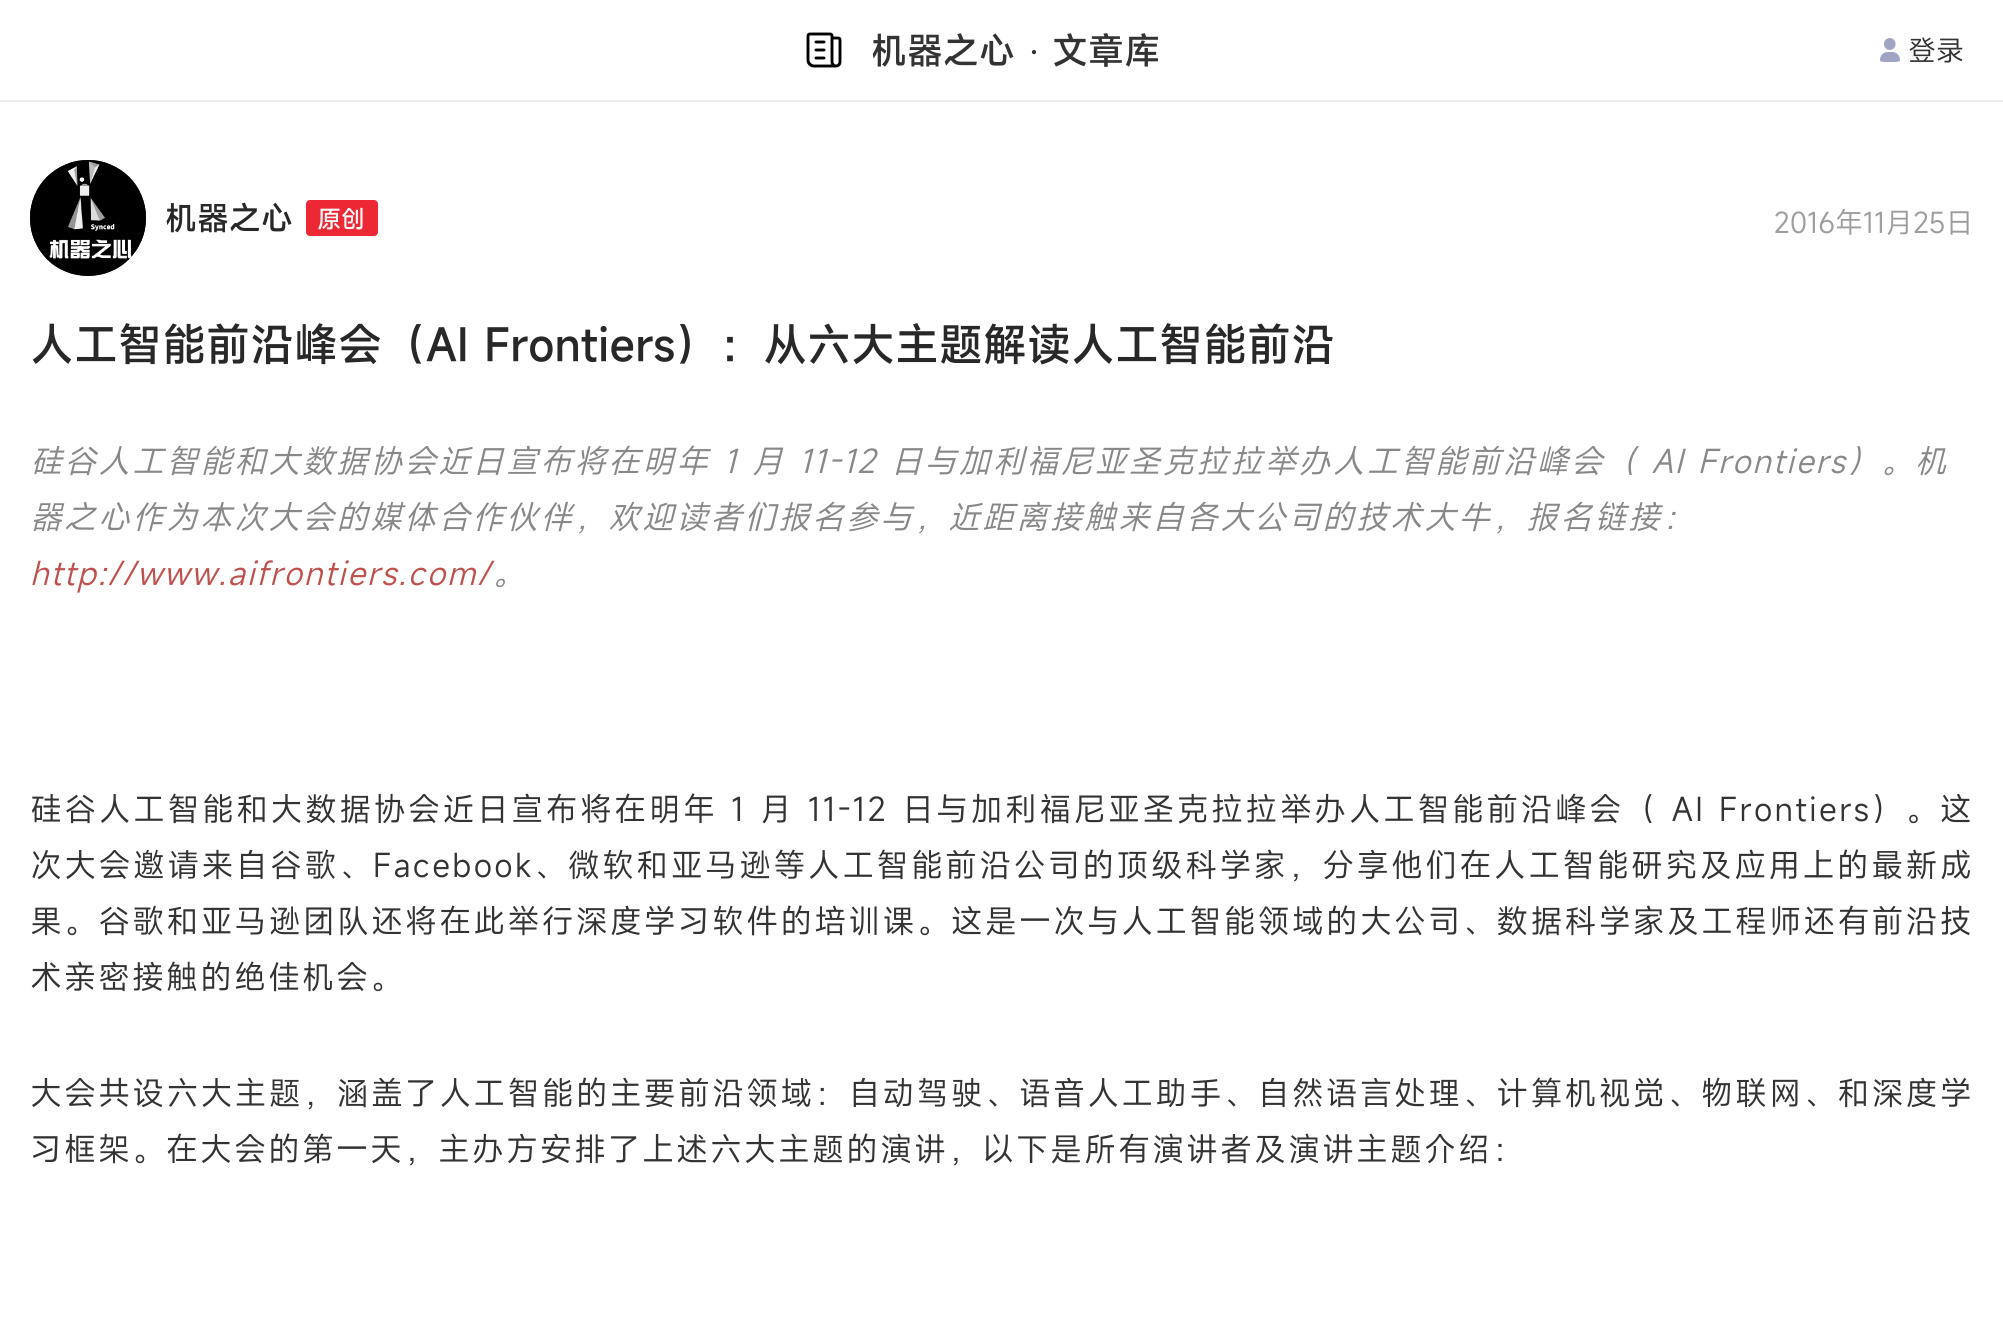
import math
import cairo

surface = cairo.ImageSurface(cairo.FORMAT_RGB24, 2003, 1331)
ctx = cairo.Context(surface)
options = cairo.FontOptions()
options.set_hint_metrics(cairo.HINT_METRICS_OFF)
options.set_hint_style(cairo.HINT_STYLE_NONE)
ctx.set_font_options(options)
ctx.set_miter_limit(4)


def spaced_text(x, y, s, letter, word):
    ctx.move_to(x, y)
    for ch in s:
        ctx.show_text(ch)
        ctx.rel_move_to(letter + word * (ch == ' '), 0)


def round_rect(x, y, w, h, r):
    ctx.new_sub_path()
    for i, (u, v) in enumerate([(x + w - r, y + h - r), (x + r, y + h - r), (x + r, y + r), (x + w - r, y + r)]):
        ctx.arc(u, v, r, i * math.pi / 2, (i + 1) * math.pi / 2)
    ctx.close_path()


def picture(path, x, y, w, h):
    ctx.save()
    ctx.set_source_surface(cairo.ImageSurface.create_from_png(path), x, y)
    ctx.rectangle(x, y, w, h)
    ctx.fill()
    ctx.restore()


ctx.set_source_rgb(1, 1, 1)
ctx.paint()
ctx.set_source_rgb(0.922, 0.925, 0.945)
ctx.rectangle(0, 100, 2003, 2)
ctx.fill()
picture("img1.png", 806, 32, 36, 37)
ctx.select_font_face("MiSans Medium")
ctx.set_font_size(36)
ctx.set_source_rgb(0.2, 0.2, 0.2)
ctx.move_to(871, 64)
ctx.show_text("机器之心")
ctx.select_font_face("Liberation Serif")
ctx.move_to(1028, 64)
ctx.show_text("·")
ctx.select_font_face("MiSans Medium")
ctx.move_to(1052, 64)
ctx.show_text("文章库")
picture("img2.png", 1880, 38, 20, 24)
ctx.select_font_face("MiSans")
ctx.set_font_size(28)
ctx.move_to(1908, 61)
ctx.show_text("登录")
ctx.new_path()
ctx.arc(88, 218, 58, 0, 2 * math.pi)
ctx.fill()
picture("img3.png", 30, 160, 116, 116)
ctx.select_font_face("MiSans Medium")
ctx.set_font_size(32)
ctx.set_source_rgb(0.157, 0.157, 0.157)
ctx.move_to(165, 230)
ctx.show_text("机器之心")
ctx.set_source_rgb(0.922, 0.157, 0.208)
round_rect(306, 200, 72, 36, 4)
ctx.fill()
ctx.set_font_size(24)
ctx.set_source_rgb(0.965, 0.965, 0.965)
ctx.move_to(317, 228)
ctx.show_text("原创")
ctx.select_font_face("MiSans")
ctx.set_font_size(28)
ctx.set_source_rgb(0.616, 0.616, 0.616)
ctx.move_to(1774, 233)
ctx.show_text("2016年11月25日")
ctx.select_font_face("MiSans Medium")
ctx.set_font_size(44)
ctx.set_source_rgb(0.157, 0.157, 0.157)
ctx.move_to(30, 361)
ctx.show_text("人工智能前沿峰会（AI Frontiers）：从六大主题解读人工智能前沿")
ctx.select_font_face("MiSans", cairo.FONT_SLANT_ITALIC)
ctx.set_font_size(32)
ctx.set_source_rgb(0.533, 0.533, 0.533)
spaced_text(30, 473, "硅谷人工智能和大数据协会近日宣布将在明年 1 月 11-12 日与加利福尼亚圣克拉拉举办人工智能前沿峰会（ AI Frontiers）。机", 2, 0)
spaced_text(30, 529, "器之心作为本次大会的媒体合作伙伴，欢迎读者们报名参与，近距离接触来自各大公司的技术大牛，报名链接：", 2, 0)
ctx.set_source_rgb(0.753, 0.314, 0.302)
spaced_text(30, 585, "http://www.aifrontiers.com/", 2, 0)
ctx.set_source_rgb(0.533, 0.533, 0.533)
spaced_text(492, 585, "。", 2, 0)
ctx.select_font_face("MiSans")
ctx.set_source_rgb(0.2, 0.2, 0.2)
spaced_text(30, 821, "硅谷人工智能和大数据协会近日宣布将在明年 1 月 11-12 日与加利福尼亚圣克拉拉举办人工智能前沿峰会（ AI Frontiers）。这", 2.37, 0)
spaced_text(30, 877, "次大会邀请来自谷歌、Facebook、微软和亚马逊等人工智能前沿公司的顶级科学家，分享他们在人工智能研究及应用上的最新成", 2.3, 0)
spaced_text(30, 933, "果。谷歌和亚马逊团队还将在此举行深度学习软件的培训课。这是一次与人工智能领域的大公司、数据科学家及工程师还有前沿技", 2.1, 0)
spaced_text(30, 989, "术亲密接触的绝佳机会。", 2, 0)
spaced_text(30, 1105, "大会共设六大主题，涵盖了人工智能的主要前沿领域：自动驾驶、语音人工助手、自然语言处理、计算机视觉、物联网、和深度学", 2.1, 0)
spaced_text(30, 1161, "习框架。在大会的第一天，主办方安排了上述六大主题的演讲，以下是所有演讲者及演讲主题介绍：", 2, 0)
surface.write_to_png("page.png")
